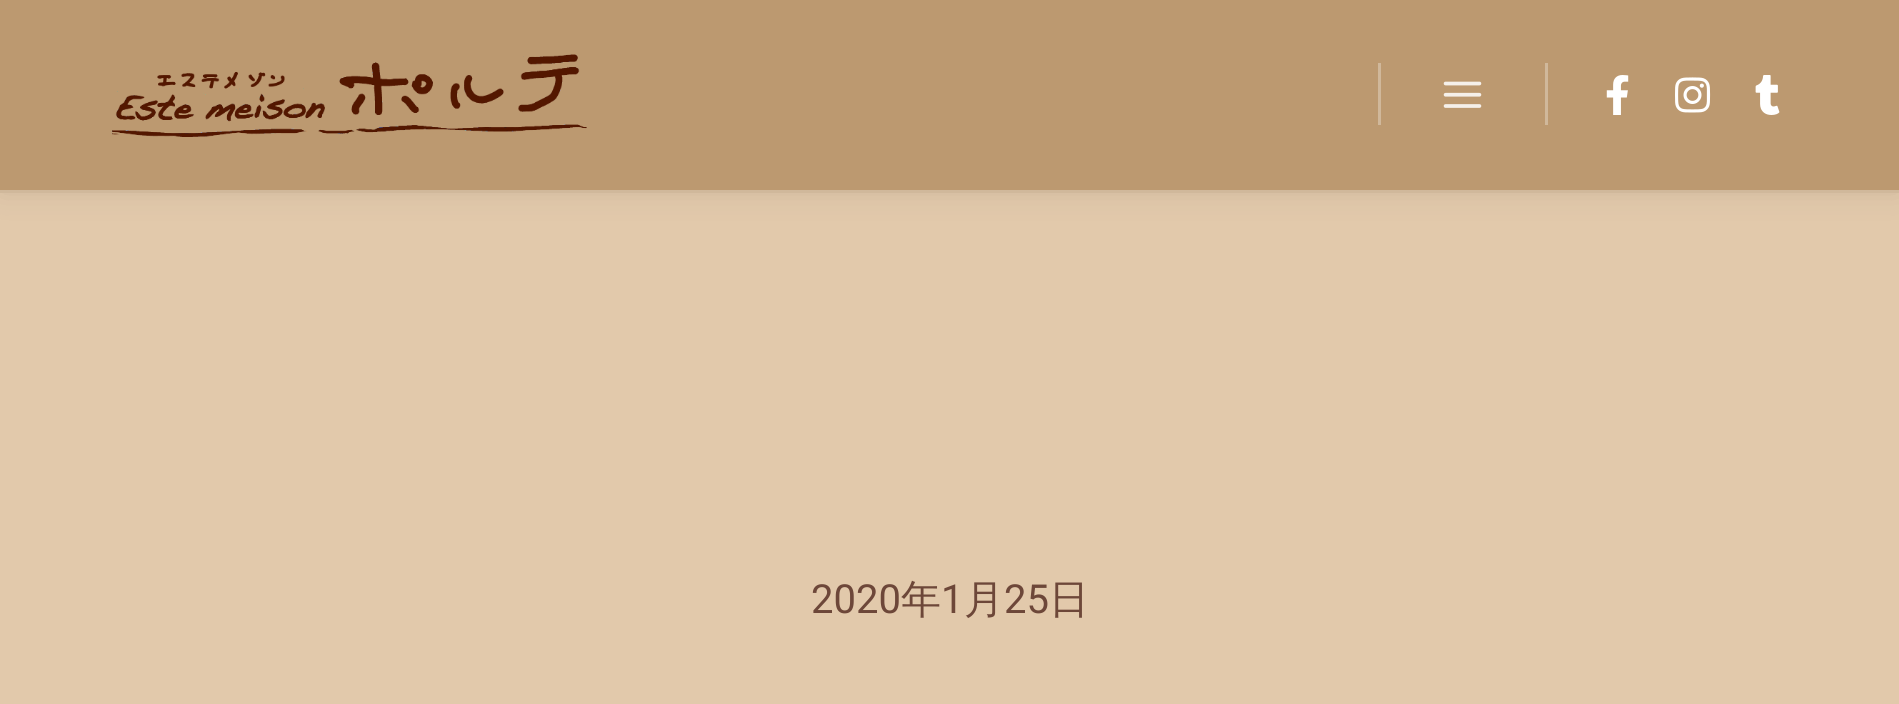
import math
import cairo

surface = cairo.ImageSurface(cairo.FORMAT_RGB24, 1899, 704)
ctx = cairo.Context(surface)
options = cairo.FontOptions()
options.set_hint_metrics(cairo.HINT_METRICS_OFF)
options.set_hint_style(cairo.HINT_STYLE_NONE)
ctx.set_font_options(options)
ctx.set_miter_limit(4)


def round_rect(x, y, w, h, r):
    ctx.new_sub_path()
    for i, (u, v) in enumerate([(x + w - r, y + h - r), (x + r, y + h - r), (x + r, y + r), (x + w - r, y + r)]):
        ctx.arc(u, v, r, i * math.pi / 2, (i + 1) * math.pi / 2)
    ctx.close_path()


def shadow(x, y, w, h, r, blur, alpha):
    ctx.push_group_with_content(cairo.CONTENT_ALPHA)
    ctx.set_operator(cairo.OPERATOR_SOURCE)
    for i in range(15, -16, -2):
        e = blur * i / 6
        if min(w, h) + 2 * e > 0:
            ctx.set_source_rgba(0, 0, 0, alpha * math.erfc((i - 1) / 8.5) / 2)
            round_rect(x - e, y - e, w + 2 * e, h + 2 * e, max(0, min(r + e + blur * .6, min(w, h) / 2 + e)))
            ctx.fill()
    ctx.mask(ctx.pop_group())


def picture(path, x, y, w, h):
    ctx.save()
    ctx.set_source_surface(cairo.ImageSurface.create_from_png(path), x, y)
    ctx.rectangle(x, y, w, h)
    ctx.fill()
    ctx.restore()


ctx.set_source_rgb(0.886, 0.788, 0.671)
ctx.paint()
ctx.set_source_rgb(0, 0, 0)
shadow(0, 0, 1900, 193, 0, 15, 0.09)
ctx.set_source_rgb(0.737, 0.6, 0.439)
ctx.rectangle(0, 0, 1899, 190)
ctx.fill()
ctx.set_source_rgb(0.816, 0.722, 0.608)
ctx.rectangle(0, 190, 1899, 3)
ctx.fill()
picture("img1.png", 111, 54, 476, 83)
ctx.rectangle(1378, 63, 3, 62)
ctx.fill()
picture("img2.png", 1443, 81, 39, 27)
ctx.rectangle(1545, 63, 3, 62)
ctx.fill()
picture("img3.png", 1606, 75, 23, 40)
picture("img4.png", 1675, 77, 36, 36)
picture("img5.png", 1755, 75, 25, 40)
ctx.select_font_face("Roboto")
ctx.set_font_size(40)
ctx.set_source_rgb(0.427, 0.278, 0.224)
ctx.move_to(811, 613)
ctx.show_text("2020")
ctx.select_font_face("WenQuanYi Zen Hei Medium")
ctx.move_to(901, 613)
ctx.show_text("年")
ctx.select_font_face("Roboto")
ctx.move_to(941, 613)
ctx.show_text("1")
ctx.select_font_face("WenQuanYi Zen Hei Medium")
ctx.move_to(964, 613)
ctx.show_text("月")
ctx.select_font_face("Roboto")
ctx.move_to(1004, 613)
ctx.show_text("25")
ctx.select_font_face("WenQuanYi Zen Hei Medium")
ctx.move_to(1049, 613)
ctx.show_text("日")
surface.write_to_png("page.png")
